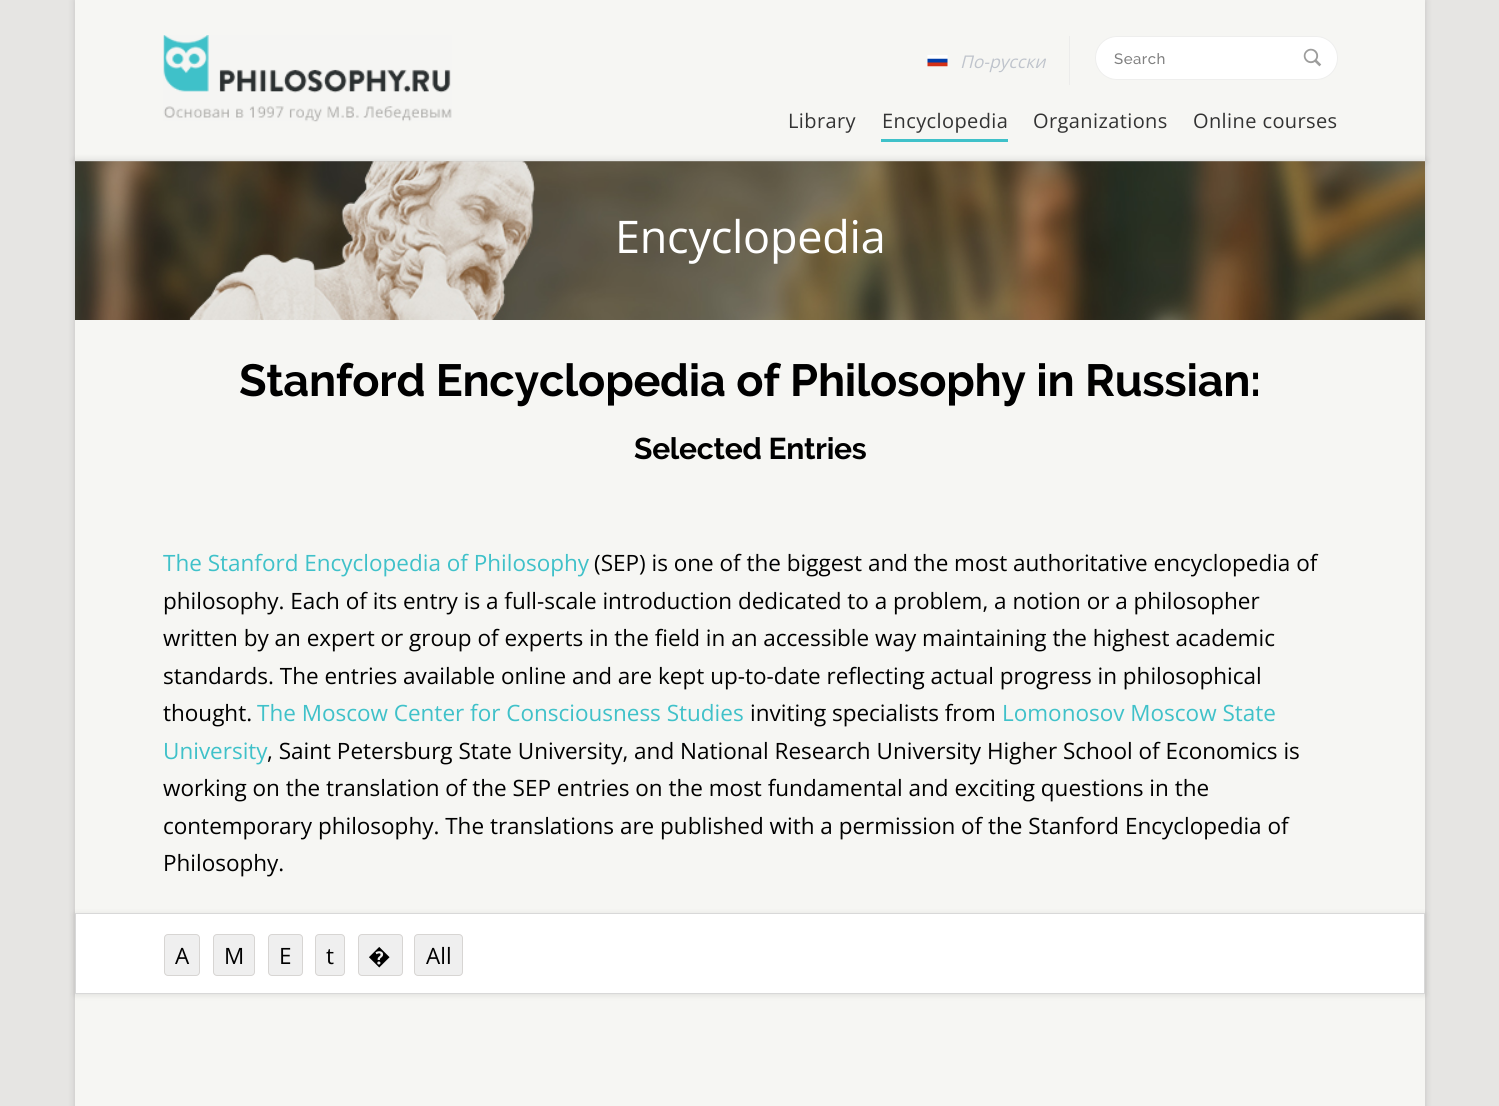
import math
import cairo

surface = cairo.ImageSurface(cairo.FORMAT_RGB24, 1499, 1106)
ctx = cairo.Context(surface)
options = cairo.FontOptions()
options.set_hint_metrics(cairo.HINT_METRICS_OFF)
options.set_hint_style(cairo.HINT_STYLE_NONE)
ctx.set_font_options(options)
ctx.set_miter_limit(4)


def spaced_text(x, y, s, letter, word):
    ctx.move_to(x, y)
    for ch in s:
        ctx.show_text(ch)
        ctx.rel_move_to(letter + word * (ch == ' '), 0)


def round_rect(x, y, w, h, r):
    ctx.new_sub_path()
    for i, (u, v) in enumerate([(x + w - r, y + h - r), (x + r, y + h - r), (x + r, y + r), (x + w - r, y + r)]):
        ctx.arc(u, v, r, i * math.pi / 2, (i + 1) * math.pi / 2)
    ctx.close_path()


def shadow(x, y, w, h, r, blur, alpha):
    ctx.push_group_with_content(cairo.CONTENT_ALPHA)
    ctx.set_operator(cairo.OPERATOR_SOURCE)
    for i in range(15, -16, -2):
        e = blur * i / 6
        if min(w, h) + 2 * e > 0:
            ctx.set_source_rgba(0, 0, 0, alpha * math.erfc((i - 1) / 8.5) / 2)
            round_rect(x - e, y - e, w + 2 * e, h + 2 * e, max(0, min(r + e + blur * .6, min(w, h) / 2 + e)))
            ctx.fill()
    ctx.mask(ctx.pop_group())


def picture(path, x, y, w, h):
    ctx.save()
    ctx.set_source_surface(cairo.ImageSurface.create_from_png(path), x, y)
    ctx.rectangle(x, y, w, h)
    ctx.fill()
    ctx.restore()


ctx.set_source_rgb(0.902, 0.898, 0.89)
ctx.paint()
ctx.set_source_rgb(0, 0, 0)
shadow(75, 0, 1350, 161, 0, 4, 0.15)
ctx.set_source_rgb(0.961, 0.961, 0.953)
ctx.rectangle(75, 0, 1350, 161)
ctx.fill()
picture("img1.png", 163, 35, 289, 87)
picture("img2.png", 927, 55, 21, 12)
ctx.select_font_face("Open Sans", cairo.FONT_SLANT_ITALIC)
ctx.set_font_size(17.5)
ctx.set_source_rgb(0.749, 0.769, 0.8)
ctx.move_to(960, 68)
ctx.show_text("По-русски")
ctx.set_source_rgb(0.925, 0.925, 0.918)
ctx.rectangle(1069, 36, 1, 49)
ctx.fill()
ctx.set_source_rgb(1, 1, 1)
round_rect(1095.5, 36.5, 242, 43, 21.5)
ctx.fill_preserve()
ctx.set_source_rgb(0.933, 0.933, 0.929)
ctx.set_line_width(1)
ctx.stroke()
ctx.select_font_face("Raleway Medium")
ctx.set_font_size(15)
ctx.set_source_rgb(0.502, 0.502, 0.502)
spaced_text(1114, 64, "Search", 0.5, 0)
picture("img3.png", 1303, 48, 19, 19)
ctx.select_font_face("Open Sans")
ctx.set_font_size(20)
ctx.set_source_rgb(0.2, 0.2, 0.2)
spaced_text(788, 128, "Library", 0.4, 0)
ctx.set_source_rgb(0.247, 0.757, 0.788)
ctx.rectangle(881, 139, 127, 3)
ctx.fill()
ctx.set_source_rgb(0.2, 0.2, 0.2)
spaced_text(882, 128, "Encyclopedia", 0.4, 0)
spaced_text(1033, 128, "Organizations", 0.4, 0)
spaced_text(1193, 128, "Online courses", 0.4, 0)
ctx.set_source_rgb(0, 0, 0)
shadow(75, 161, 1350, 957, 0, 4, 0.15)
picture("img4.png", 75, 161, 1350, 159)
ctx.set_font_size(45)
ctx.set_source_rgb(1, 1, 1)
spaced_text(615, 253, "Encyclopedia", -0.25, 0)
ctx.set_source_rgb(0.961, 0.961, 0.953)
ctx.rectangle(75, 320, 1350, 786)
ctx.fill()
ctx.select_font_face("Raleway", cairo.FONT_SLANT_NORMAL, cairo.FONT_WEIGHT_BOLD)
ctx.set_source_rgb(0, 0, 0)
spaced_text(239, 396, "Stanford Encyclopedia of Philosophy in Russian:", -0.25, 0)
ctx.set_font_size(30)
spaced_text(634, 459, "Selected Entries", -0.25, 0)
ctx.select_font_face("Open Sans")
ctx.set_font_size(22.5)
ctx.set_source_rgb(0.247, 0.757, 0.788)
ctx.move_to(163, 571)
ctx.show_text("The Stanford Encyclopedia of Philosophy")
ctx.set_source_rgb(0, 0, 0)
ctx.move_to(594, 571)
ctx.show_text("(SEP) is one of the biggest and the most authoritative encyclopedia of")
ctx.move_to(163, 609)
ctx.show_text("philosophy. Each of its entry is a full-scale introduction dedicated to a problem, a notion or a philosopher")
ctx.move_to(163, 646)
ctx.show_text("written by an expert or group of experts in the field in an accessible way maintaining the highest academic")
ctx.move_to(163, 684)
ctx.show_text("standards. The entries available online and are kept up-to-date reflecting actual progress in philosophical")
ctx.move_to(163, 721)
ctx.show_text("thought.")
ctx.set_source_rgb(0.247, 0.757, 0.788)
ctx.move_to(257, 721)
ctx.show_text("The Moscow Center for Consciousness Studies")
ctx.set_source_rgb(0, 0, 0)
ctx.move_to(750, 721)
ctx.show_text("inviting specialists from")
ctx.set_source_rgb(0.247, 0.757, 0.788)
ctx.move_to(1002, 721)
ctx.show_text("Lomonosov Moscow State")
ctx.move_to(163, 759)
ctx.show_text("University")
ctx.set_source_rgb(0, 0, 0)
ctx.move_to(267, 759)
ctx.show_text(", Saint Petersburg State University, and National Research University Higher School of Economics is")
ctx.move_to(163, 796)
ctx.show_text("working on the translation of the SEP entries on the most fundamental and exciting questions in the")
ctx.move_to(163, 834)
ctx.show_text("contemporary philosophy. The translations are published with a permission of the Stanford Encyclopedia of")
ctx.move_to(163, 871)
ctx.show_text("Philosophy.")
ctx.set_source_rgb(0, 0, 0)
shadow(75, 914, 1350, 81, 0, 3, 0.1)
ctx.set_source_rgb(1, 1, 1)
ctx.rectangle(75.5, 913.5, 1349, 80)
ctx.fill_preserve()
ctx.set_source_rgb(0.847, 0.847, 0.847)
ctx.stroke()
ctx.set_source_rgb(0.937, 0.937, 0.937)
round_rect(164.5, 934.5, 35, 41, 3.5)
ctx.fill_preserve()
ctx.set_source_rgb(0.843, 0.835, 0.827)
ctx.stroke()
ctx.set_source_rgb(0, 0, 0)
ctx.move_to(175, 964)
ctx.show_text("A")
ctx.set_source_rgb(0.937, 0.937, 0.937)
round_rect(213.5, 934.5, 41, 41, 3.5)
ctx.fill_preserve()
ctx.set_source_rgb(0.843, 0.835, 0.827)
ctx.stroke()
ctx.set_source_rgb(0, 0, 0)
ctx.move_to(224, 964)
ctx.show_text("M")
ctx.set_source_rgb(0.937, 0.937, 0.937)
round_rect(268.5, 934.5, 34, 41, 3.5)
ctx.fill_preserve()
ctx.set_source_rgb(0.843, 0.835, 0.827)
ctx.stroke()
ctx.set_source_rgb(0, 0, 0)
ctx.move_to(279, 964)
ctx.show_text("E")
ctx.set_source_rgb(0.937, 0.937, 0.937)
round_rect(315.5, 934.5, 29, 41, 3.5)
ctx.fill_preserve()
ctx.set_source_rgb(0.843, 0.835, 0.827)
ctx.stroke()
ctx.set_source_rgb(0, 0, 0)
ctx.move_to(326, 964)
ctx.show_text("t")
ctx.set_source_rgb(0.937, 0.937, 0.937)
round_rect(358.5, 934.5, 44, 41, 3.5)
ctx.fill_preserve()
ctx.set_source_rgb(0.843, 0.835, 0.827)
ctx.stroke()
ctx.set_source_rgb(0, 0, 0)
ctx.move_to(368, 964)
ctx.show_text("�")
ctx.set_source_rgb(0.937, 0.937, 0.937)
round_rect(414.5, 934.5, 48, 41, 3.5)
ctx.fill_preserve()
ctx.set_source_rgb(0.843, 0.835, 0.827)
ctx.stroke()
ctx.set_source_rgb(0, 0, 0)
ctx.move_to(426, 964)
ctx.show_text("All")
surface.write_to_png("page.png")
